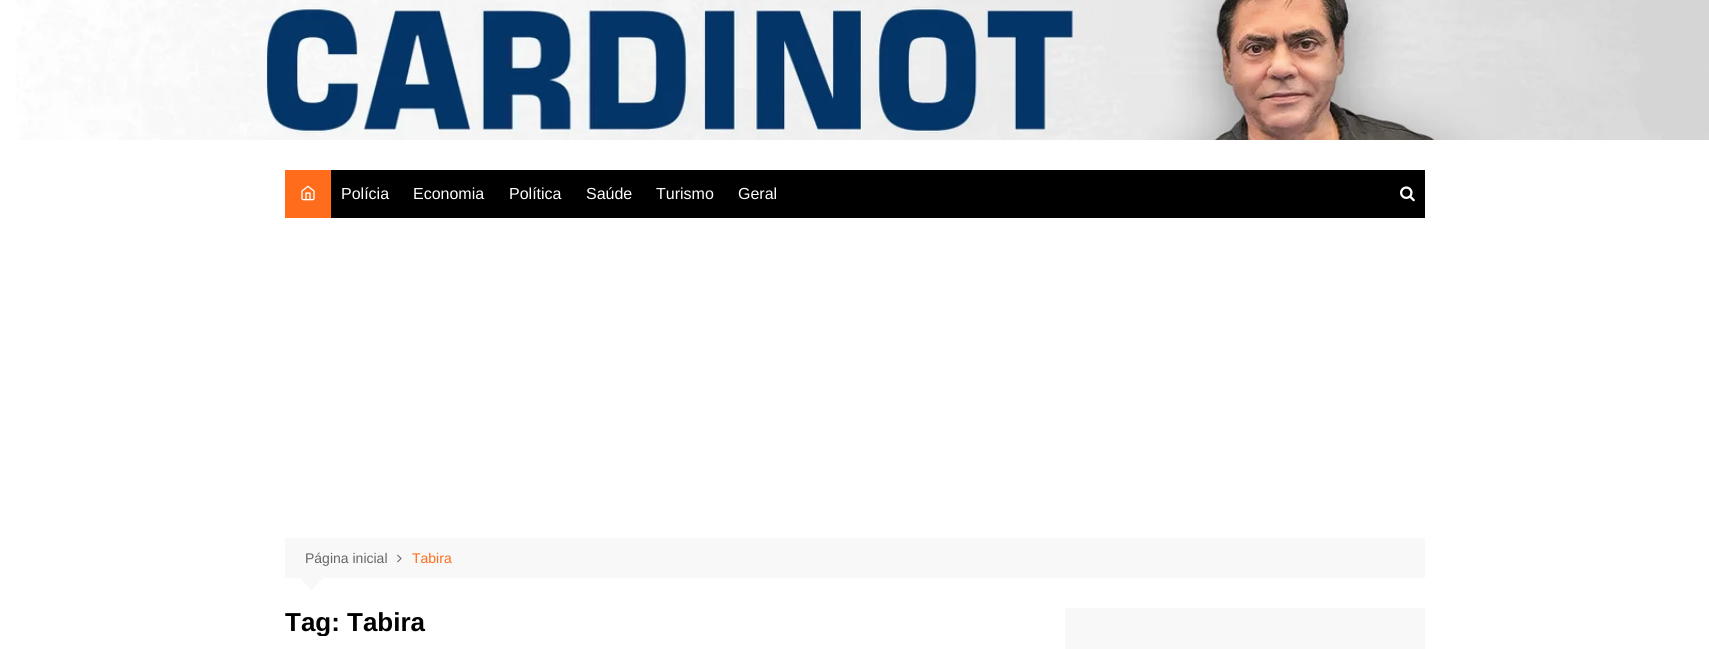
import math
import cairo

surface = cairo.ImageSurface(cairo.FORMAT_RGB24, 1709, 649)
ctx = cairo.Context(surface)
options = cairo.FontOptions()
options.set_hint_metrics(cairo.HINT_METRICS_OFF)
options.set_hint_style(cairo.HINT_STYLE_NONE)
ctx.set_font_options(options)
ctx.set_miter_limit(4)


def picture(path, x, y, w, h):
    ctx.save()
    ctx.set_source_surface(cairo.ImageSurface.create_from_png(path), x, y)
    ctx.rectangle(x, y, w, h)
    ctx.fill()
    ctx.restore()


ctx.set_source_rgb(1, 1, 1)
ctx.paint()
picture("img1.png", 16, 0, 1693, 140)
ctx.set_source_rgb(0, 0, 0)
ctx.rectangle(331, 170, 1094, 48)
ctx.fill()
ctx.set_source_rgb(0.996, 0.424, 0.11)
ctx.rectangle(285, 170, 46, 48)
ctx.fill()
picture("img2.png", 301, 185, 14, 16)
ctx.select_font_face("Liberation Sans")
ctx.set_font_size(16)
ctx.set_source_rgb(1, 1, 1)
ctx.move_to(341, 199)
ctx.show_text("Polícia")
ctx.move_to(413, 199)
ctx.show_text("Economia")
ctx.move_to(509, 199)
ctx.show_text("Política")
ctx.move_to(586, 199)
ctx.show_text("Saúde")
ctx.move_to(656, 199)
ctx.show_text("Turismo")
ctx.move_to(738, 199)
ctx.show_text("Geral")
picture("img3.png", 1400, 186, 15, 16)
ctx.set_source_rgb(0.969, 0.969, 0.969)
ctx.rectangle(285, 538, 1140, 40)
ctx.fill()
ctx.set_font_size(14)
ctx.set_source_rgb(0.4, 0.4, 0.4)
ctx.move_to(305, 563)
ctx.show_text("Página inicial")
picture("img4.png", 397, 554, 5, 9)
ctx.set_source_rgb(0.996, 0.424, 0.11)
ctx.move_to(412, 563)
ctx.show_text("Tabira")
ctx.set_source_rgb(0.969, 0.969, 0.969)
ctx.new_path()
ctx.move_to(299.5, 577.5)
ctx.line_to(323.5, 577.5)
ctx.line_to(311.5, 590.5)
ctx.close_path()
ctx.fill()
ctx.save()
ctx.rectangle(285, 608, 750, 28)
ctx.clip()
ctx.select_font_face("Liberation Sans", cairo.FONT_SLANT_NORMAL, cairo.FONT_WEIGHT_BOLD)
ctx.set_font_size(26)
ctx.set_source_rgb(0.004, 0.004, 0.004)
ctx.move_to(285, 631)
ctx.show_text("Tag:")
ctx.restore()
ctx.select_font_face("Liberation Sans", cairo.FONT_SLANT_NORMAL, cairo.FONT_WEIGHT_BOLD)
ctx.set_font_size(26)
ctx.set_source_rgb(0.004, 0.004, 0.004)
ctx.move_to(347, 631)
ctx.show_text("Tabira")
ctx.set_source_rgb(0.969, 0.969, 0.969)
ctx.rectangle(1065, 608, 360, 41)
ctx.fill()
surface.write_to_png("page.png")
